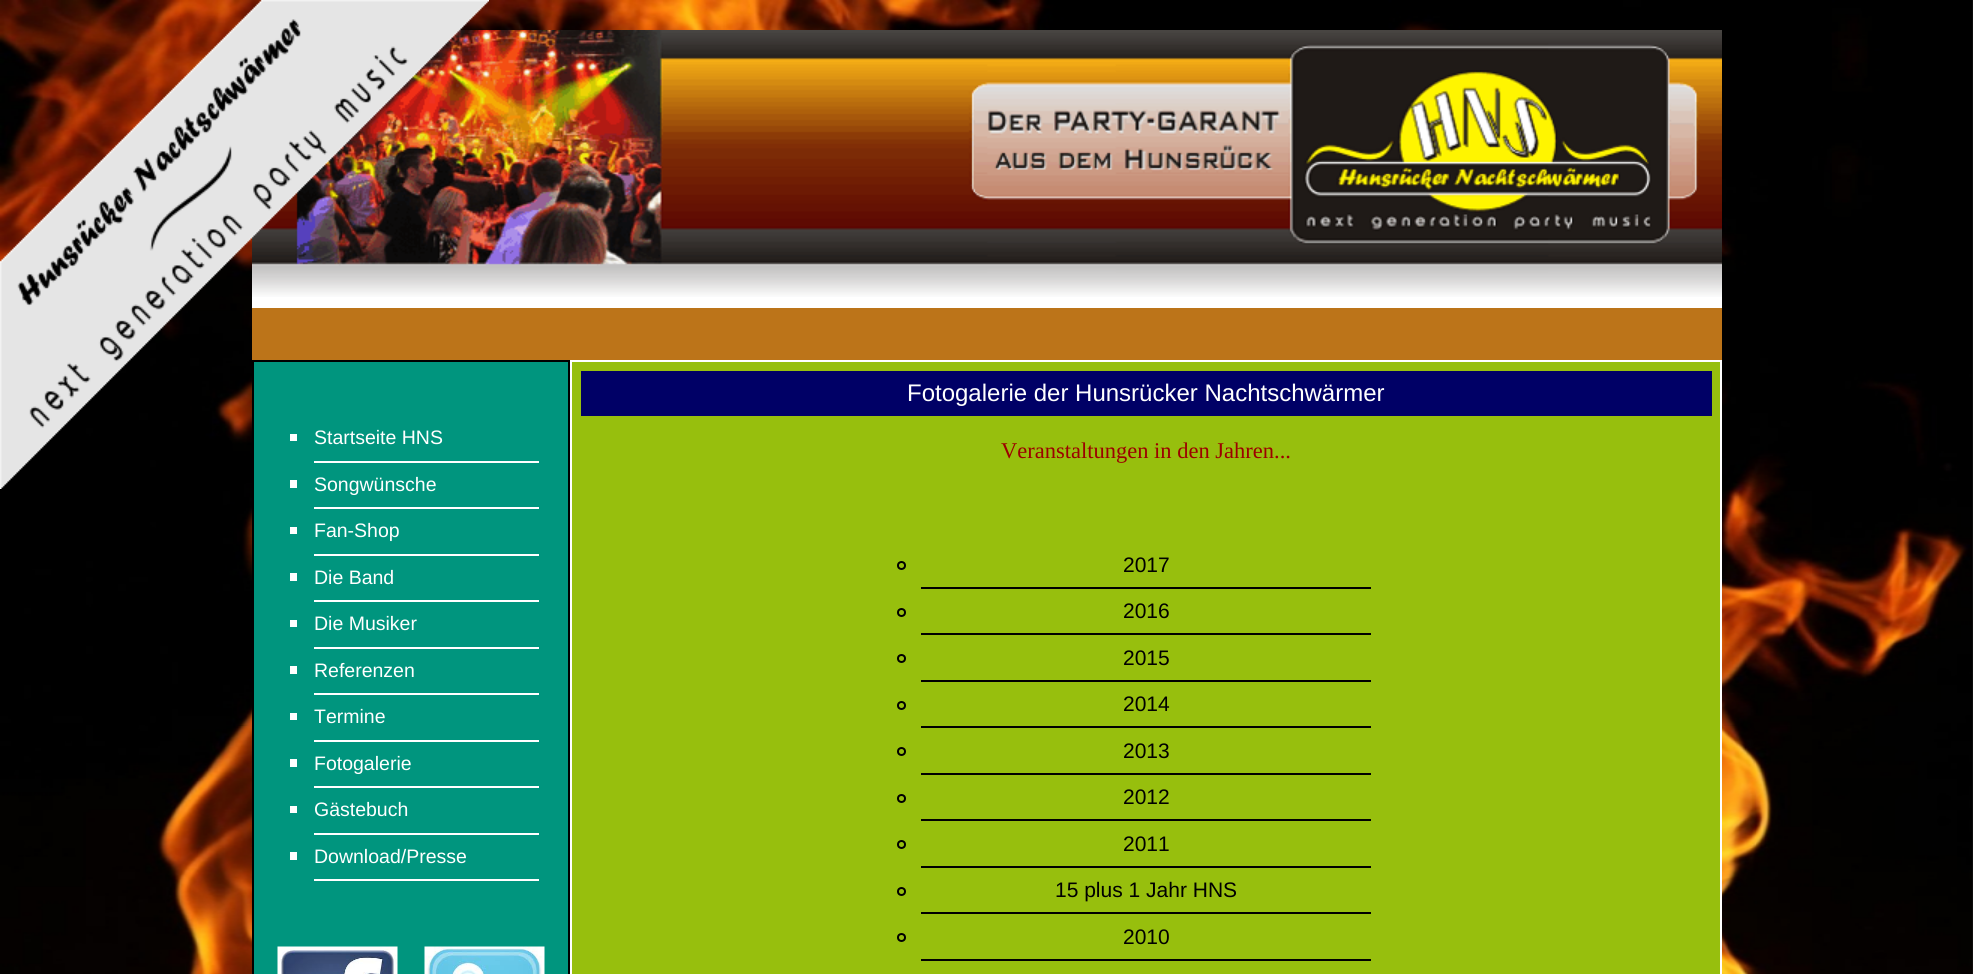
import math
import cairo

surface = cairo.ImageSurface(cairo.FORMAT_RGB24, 1973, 974)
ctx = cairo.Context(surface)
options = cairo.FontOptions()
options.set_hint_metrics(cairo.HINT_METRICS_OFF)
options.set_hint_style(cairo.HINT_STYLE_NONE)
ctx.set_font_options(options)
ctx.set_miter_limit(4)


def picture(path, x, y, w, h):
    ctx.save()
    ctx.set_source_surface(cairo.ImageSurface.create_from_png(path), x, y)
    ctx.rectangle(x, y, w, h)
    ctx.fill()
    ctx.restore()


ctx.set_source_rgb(1, 1, 1)
ctx.paint()
picture("img1.png", 0, 0, 1973, 974)
ctx.set_source_rgb(1, 1, 1)
ctx.rectangle(252, 297, 1470, 11)
ctx.fill()
picture("img3.png", 252, 30, 1470, 267)
ctx.set_source_rgb(0.737, 0.455, 0.098)
ctx.rectangle(252, 308, 1470, 52)
ctx.fill()
ctx.set_source_rgb(0, 0.584, 0.494)
ctx.rectangle(253, 361, 316, 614)
ctx.fill_preserve()
ctx.set_source_rgb(0, 0, 0)
ctx.stroke()
ctx.set_source_rgb(1, 1, 1)
ctx.rectangle(290, 434, 7, 7)
ctx.fill()
ctx.rectangle(314, 461, 225, 2)
ctx.fill()
ctx.select_font_face("Liberation Sans")
ctx.set_font_size(19.5)
ctx.move_to(314, 444)
ctx.show_text("Startseite HNS")
ctx.rectangle(290, 480, 7, 8)
ctx.fill()
ctx.move_to(314, 491)
ctx.show_text("Songwünsche")
picture("img2.png", 0, 0, 489, 489)
ctx.rectangle(314, 507, 225, 2)
ctx.fill()
ctx.rectangle(290, 527, 7, 7)
ctx.fill()
ctx.rectangle(314, 554, 225, 2)
ctx.fill()
ctx.move_to(314, 537)
ctx.show_text("Fan-Shop")
ctx.rectangle(290, 573, 7, 8)
ctx.fill()
ctx.rectangle(314, 600, 225, 2)
ctx.fill()
ctx.move_to(314, 584)
ctx.show_text("Die Band")
ctx.rectangle(290, 620, 7, 7)
ctx.fill()
ctx.rectangle(314, 647, 225, 2)
ctx.fill()
ctx.move_to(314, 630)
ctx.show_text("Die Musiker")
ctx.rectangle(290, 666, 7, 8)
ctx.fill()
ctx.rectangle(314, 693, 225, 2)
ctx.fill()
ctx.move_to(314, 677)
ctx.show_text("Referenzen")
ctx.rectangle(290, 713, 7, 7)
ctx.fill()
ctx.rectangle(314, 740, 225, 2)
ctx.fill()
ctx.move_to(314, 723)
ctx.show_text("Termine")
ctx.rectangle(290, 759, 7, 8)
ctx.fill()
ctx.rectangle(314, 786, 225, 2)
ctx.fill()
ctx.move_to(314, 770)
ctx.show_text("Fotogalerie")
ctx.rectangle(290, 806, 7, 7)
ctx.fill()
ctx.rectangle(314, 833, 225, 2)
ctx.fill()
ctx.move_to(314, 816)
ctx.show_text("Gästebuch")
ctx.rectangle(290, 852, 7, 8)
ctx.fill()
ctx.rectangle(314, 879, 225, 2)
ctx.fill()
ctx.move_to(314, 863)
ctx.show_text("Download/Presse")
picture("img4.png", 277, 946, 121, 28)
picture("img5.png", 424, 946, 121, 28)
ctx.set_source_rgb(0.592, 0.749, 0.051)
ctx.rectangle(571, 361, 1150, 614)
ctx.fill_preserve()
ctx.set_source_rgb(1, 1, 1)
ctx.stroke()
ctx.set_source_rgb(0, 0, 0.4)
ctx.rectangle(581, 371, 1131, 45)
ctx.fill()
ctx.set_font_size(24)
ctx.set_source_rgb(1, 1, 1)
ctx.move_to(907, 401)
ctx.show_text("Fotogalerie der Hunsrücker Nachtschwärmer")
ctx.select_font_face("Liberation Serif")
ctx.set_font_size(22.5)
ctx.set_source_rgb(0.612, 0, 0)
ctx.move_to(1001, 458)
ctx.show_text("Veranstaltungen in den Jahren...")
ctx.new_path()
ctx.arc(901.5, 565.5, 3.5, 0, 2 * math.pi)
ctx.set_source_rgb(0, 0, 0)
ctx.stroke()
ctx.rectangle(921, 587, 450, 2)
ctx.fill()
ctx.select_font_face("Liberation Sans")
ctx.set_font_size(21)
ctx.move_to(1123, 572)
ctx.show_text("2017")
ctx.new_path()
ctx.arc(901.5, 612.5, 3.5, 0, 2 * math.pi)
ctx.stroke()
ctx.rectangle(921, 633, 450, 2)
ctx.fill()
ctx.move_to(1123, 618)
ctx.show_text("2016")
ctx.new_path()
ctx.arc(901.5, 658.5, 3.5, 0, 2 * math.pi)
ctx.stroke()
ctx.rectangle(921, 680, 450, 2)
ctx.fill()
ctx.move_to(1123, 665)
ctx.show_text("2015")
ctx.new_path()
ctx.arc(901.5, 705.5, 3.5, 0, 2 * math.pi)
ctx.stroke()
ctx.rectangle(921, 726, 450, 2)
ctx.fill()
ctx.move_to(1123, 711)
ctx.show_text("2014")
ctx.new_path()
ctx.arc(901.5, 751.5, 3.5, 0, 2 * math.pi)
ctx.stroke()
ctx.rectangle(921, 773, 450, 2)
ctx.fill()
ctx.move_to(1123, 758)
ctx.show_text("2013")
ctx.new_path()
ctx.arc(901.5, 798.5, 3.5, 0, 2 * math.pi)
ctx.stroke()
ctx.rectangle(921, 819, 450, 2)
ctx.fill()
ctx.move_to(1123, 804)
ctx.show_text("2012")
ctx.new_path()
ctx.arc(901.5, 844.5, 3.5, 0, 2 * math.pi)
ctx.stroke()
ctx.rectangle(921, 866, 450, 2)
ctx.fill()
ctx.move_to(1123, 851)
ctx.show_text("2011")
ctx.new_path()
ctx.arc(901.5, 891.5, 3.5, 0, 2 * math.pi)
ctx.stroke()
ctx.rectangle(921, 912, 450, 2)
ctx.fill()
ctx.move_to(1055, 897)
ctx.show_text("15 plus 1 Jahr HNS")
ctx.new_path()
ctx.arc(901.5, 937.5, 3.5, 0, 2 * math.pi)
ctx.stroke()
ctx.rectangle(921, 959, 450, 2)
ctx.fill()
ctx.move_to(1123, 944)
ctx.show_text("2010")
surface.write_to_png("page.png")
